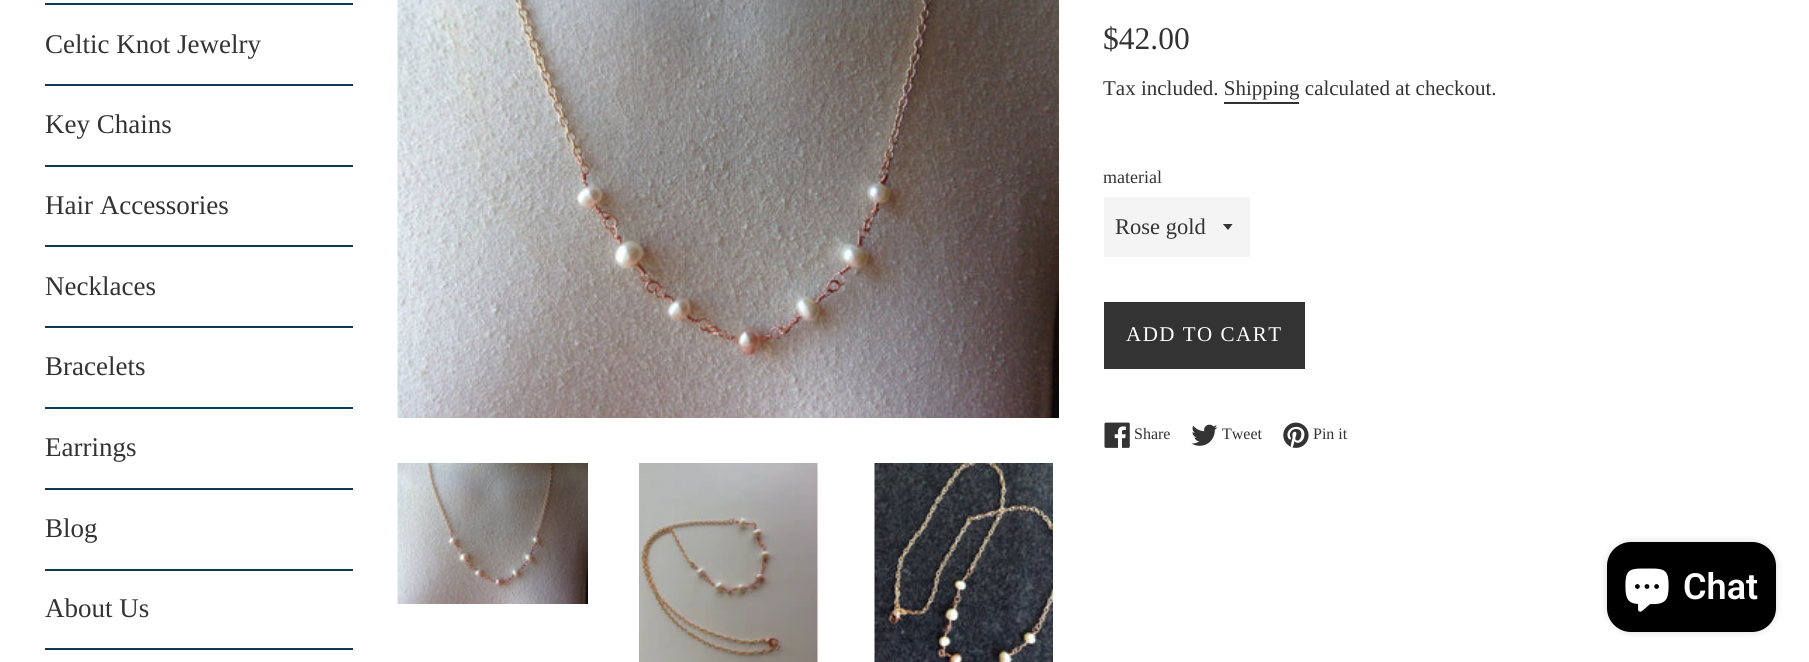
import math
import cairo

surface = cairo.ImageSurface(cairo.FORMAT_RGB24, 1809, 662)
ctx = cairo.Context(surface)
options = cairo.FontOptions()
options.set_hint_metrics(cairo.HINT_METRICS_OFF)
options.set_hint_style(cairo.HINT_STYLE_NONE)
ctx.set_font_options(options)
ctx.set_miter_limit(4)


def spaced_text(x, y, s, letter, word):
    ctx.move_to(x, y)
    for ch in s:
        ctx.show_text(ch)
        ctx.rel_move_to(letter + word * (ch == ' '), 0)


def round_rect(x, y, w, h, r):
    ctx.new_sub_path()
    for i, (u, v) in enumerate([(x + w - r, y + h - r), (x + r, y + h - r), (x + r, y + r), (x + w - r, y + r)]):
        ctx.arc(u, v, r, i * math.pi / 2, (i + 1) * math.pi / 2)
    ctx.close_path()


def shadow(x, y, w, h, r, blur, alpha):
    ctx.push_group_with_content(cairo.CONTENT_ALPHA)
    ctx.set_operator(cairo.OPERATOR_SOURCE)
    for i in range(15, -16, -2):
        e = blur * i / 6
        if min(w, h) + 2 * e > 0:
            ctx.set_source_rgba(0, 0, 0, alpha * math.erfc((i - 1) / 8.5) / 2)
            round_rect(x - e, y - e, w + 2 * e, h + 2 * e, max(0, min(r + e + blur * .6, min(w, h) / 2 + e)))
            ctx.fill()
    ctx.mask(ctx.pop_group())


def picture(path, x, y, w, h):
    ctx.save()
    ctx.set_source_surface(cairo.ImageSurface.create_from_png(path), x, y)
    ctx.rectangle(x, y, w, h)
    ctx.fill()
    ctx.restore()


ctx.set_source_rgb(1, 1, 1)
ctx.paint()
ctx.set_source_rgb(0.055, 0.231, 0.325)
ctx.rectangle(45, 3, 308, 2)
ctx.fill()
ctx.rectangle(45, 84, 308, 2)
ctx.fill()
ctx.select_font_face("Liberation Serif")
ctx.set_font_size(27)
ctx.set_source_rgb(0.2, 0.2, 0.2)
ctx.move_to(45, 53)
ctx.show_text("Celtic Knot Jewelry")
ctx.set_source_rgb(0.055, 0.231, 0.325)
ctx.rectangle(45, 165, 308, 2)
ctx.fill()
ctx.set_source_rgb(0.2, 0.2, 0.2)
ctx.move_to(45, 133)
ctx.show_text("Key Chains")
ctx.set_source_rgb(0.055, 0.231, 0.325)
ctx.rectangle(45, 245, 308, 2)
ctx.fill()
ctx.set_source_rgb(0.2, 0.2, 0.2)
ctx.move_to(45, 214)
ctx.show_text("Hair Accessories")
ctx.set_source_rgb(0.055, 0.231, 0.325)
ctx.rectangle(45, 326, 308, 2)
ctx.fill()
ctx.set_source_rgb(0.2, 0.2, 0.2)
ctx.move_to(45, 295)
ctx.show_text("Necklaces")
ctx.set_source_rgb(0.055, 0.231, 0.325)
ctx.rectangle(45, 407, 308, 2)
ctx.fill()
ctx.set_source_rgb(0.2, 0.2, 0.2)
ctx.move_to(45, 375)
ctx.show_text("Bracelets")
ctx.set_source_rgb(0.055, 0.231, 0.325)
ctx.rectangle(45, 488, 308, 2)
ctx.fill()
ctx.set_source_rgb(0.2, 0.2, 0.2)
ctx.move_to(45, 456)
ctx.show_text("Earrings")
ctx.set_source_rgb(0.055, 0.231, 0.325)
ctx.rectangle(45, 569, 308, 2)
ctx.fill()
ctx.set_source_rgb(0.2, 0.2, 0.2)
ctx.move_to(45, 537)
ctx.show_text("Blog")
ctx.set_source_rgb(0.055, 0.231, 0.325)
ctx.rectangle(45, 648, 308, 2)
ctx.fill()
ctx.set_source_rgb(0.2, 0.2, 0.2)
ctx.move_to(45, 617)
ctx.show_text("About Us")
picture("img1.png", 397, 0, 662, 418)
picture("img2.png", 397, 463, 191, 141)
picture("img3.png", 639, 463, 179, 199)
picture("img4.png", 874, 463, 179, 199)
ctx.set_font_size(31.5)
ctx.move_to(1103, 49)
ctx.show_text("$42.00")
ctx.set_font_size(21)
ctx.move_to(1103, 95)
ctx.show_text("Tax included. Shipping calculated at checkout.")
ctx.rectangle(1224, 102, 75, 2)
ctx.fill()
ctx.set_font_size(18)
ctx.move_to(1103, 183)
ctx.show_text("material")
ctx.set_source_rgb(0.957, 0.957, 0.957)
ctx.rectangle(1104, 197, 146, 60)
ctx.fill()
ctx.save()
ctx.rectangle(1223, 224, 12, 7)
ctx.clip()
ctx.set_source_rgb(0.2, 0.2, 0.2)
ctx.new_path()
ctx.move_to(1222.5, 223.5)
ctx.line_to(1228, 230)
ctx.line_to(1233, 223.5)
ctx.close_path()
ctx.fill()
ctx.restore()
ctx.set_font_size(22.5)
ctx.set_source_rgb(0.2, 0.2, 0.2)
ctx.move_to(1115, 234)
ctx.show_text("Rose gold")
ctx.rectangle(1104, 302, 201, 67)
ctx.fill()
ctx.set_font_size(21)
ctx.set_source_rgb(1, 1, 1)
spaced_text(1126, 341, "ADD TO CART", 1.5, 0)
picture("img5.png", 1104, 422, 26, 26)
ctx.set_font_size(16)
ctx.set_source_rgb(0.2, 0.2, 0.2)
ctx.move_to(1134, 439)
ctx.show_text("Share")
picture("img6.png", 1191, 424, 27, 22)
ctx.move_to(1222, 439)
ctx.show_text("Tweet")
picture("img7.png", 1283, 422, 26, 26)
ctx.move_to(1313, 439)
ctx.show_text("Pin it")
ctx.set_source_rgb(0, 0, 0)
shadow(1607, 542, 169, 90, 24, 4, 0.15)
ctx.set_source_rgb(0, 0, 0)
round_rect(1607, 542, 169, 90, 24)
ctx.fill()
picture("img8.png", 1625, 568, 44, 44)
ctx.select_font_face("Roboto SemiBold")
ctx.set_font_size(36)
ctx.set_source_rgb(1, 1, 1)
ctx.move_to(1683, 599)
ctx.show_text("Chat")
surface.write_to_png("page.png")
